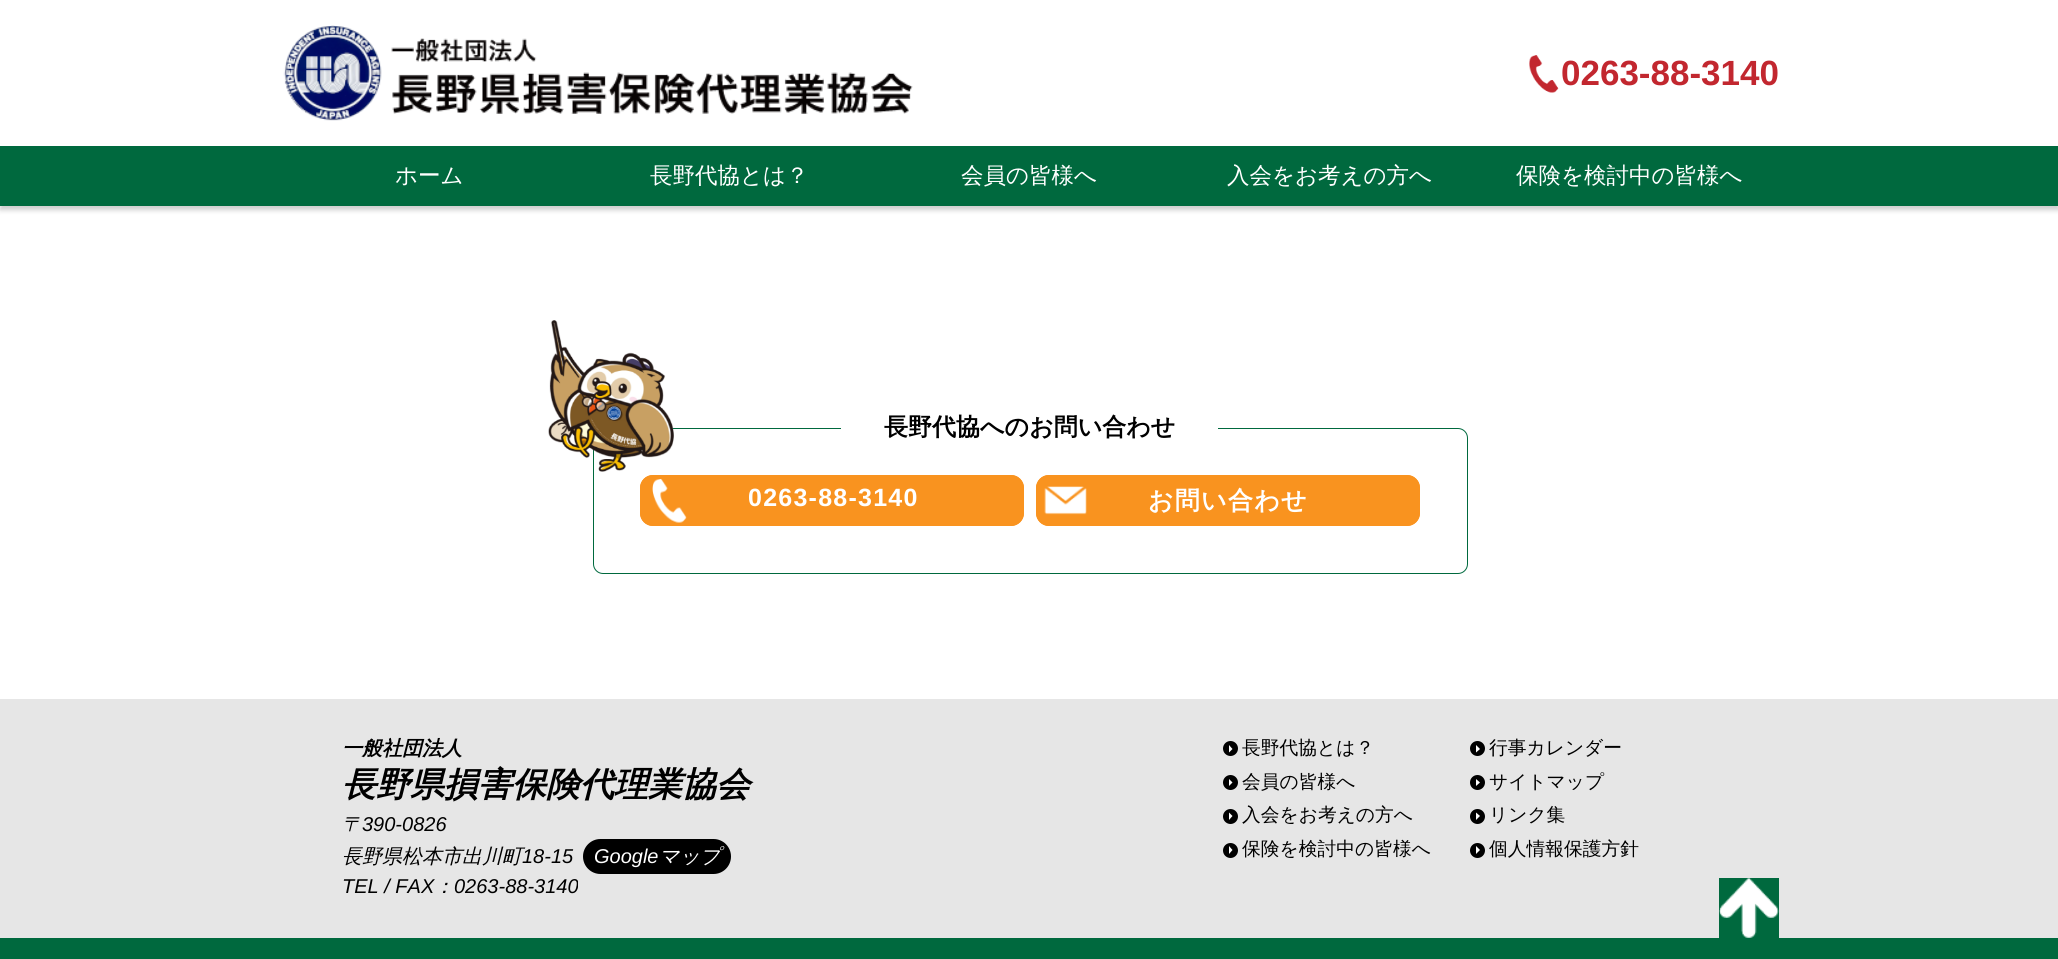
import math
import cairo

surface = cairo.ImageSurface(cairo.FORMAT_RGB24, 2058, 959)
ctx = cairo.Context(surface)
options = cairo.FontOptions()
options.set_hint_metrics(cairo.HINT_METRICS_OFF)
options.set_hint_style(cairo.HINT_STYLE_NONE)
ctx.set_font_options(options)
ctx.set_miter_limit(4)


def spaced_text(x, y, s, letter, word):
    ctx.move_to(x, y)
    for ch in s:
        ctx.show_text(ch)
        ctx.rel_move_to(letter + word * (ch == ' '), 0)


def round_rect(x, y, w, h, r):
    ctx.new_sub_path()
    for i, (u, v) in enumerate([(x + w - r, y + h - r), (x + r, y + h - r), (x + r, y + r), (x + w - r, y + r)]):
        ctx.arc(u, v, r, i * math.pi / 2, (i + 1) * math.pi / 2)
    ctx.close_path()


def shadow(x, y, w, h, r, blur, alpha):
    ctx.push_group_with_content(cairo.CONTENT_ALPHA)
    ctx.set_operator(cairo.OPERATOR_SOURCE)
    for i in range(15, -16, -2):
        e = blur * i / 6
        if min(w, h) + 2 * e > 0:
            ctx.set_source_rgba(0, 0, 0, alpha * math.erfc((i - 1) / 8.5) / 2)
            round_rect(x - e, y - e, w + 2 * e, h + 2 * e, max(0, min(r + e + blur * .6, min(w, h) / 2 + e)))
            ctx.fill()
    ctx.mask(ctx.pop_group())


def picture(path, x, y, w, h):
    ctx.save()
    ctx.set_source_surface(cairo.ImageSurface.create_from_png(path), x, y)
    ctx.rectangle(x, y, w, h)
    ctx.fill()
    ctx.restore()


ctx.set_source_rgb(1, 1, 1)
ctx.paint()
ctx.set_source_rgb(0, 0, 0)
shadow(0, 148, 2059, 62, 0, 2.5, 0.2)
ctx.set_source_rgb(1, 1, 1)
ctx.rectangle(0, 144, 2058, 2)
ctx.fill()
picture("img1.png", 283, 25, 630, 96)
picture("img2.png", 1529, 55, 30, 38)
ctx.select_font_face("Liberation Sans", cairo.FONT_SLANT_NORMAL, cairo.FONT_WEIGHT_BOLD)
ctx.set_font_size(35)
ctx.set_source_rgb(0.761, 0.153, 0.184)
ctx.move_to(1561, 85)
ctx.show_text("0263-88-3140")
ctx.set_source_rgb(0, 0.412, 0.243)
ctx.rectangle(0, 146, 2058, 60)
ctx.fill()
ctx.select_font_face("WenQuanYi Zen Hei Medium")
ctx.set_font_size(22.5)
ctx.set_source_rgb(1, 1, 1)
ctx.move_to(395, 183)
ctx.show_text("ホーム")
ctx.move_to(650, 183)
ctx.show_text("長野代協とは？")
ctx.move_to(961, 183)
ctx.show_text("会員の皆様へ")
ctx.move_to(1227, 183)
ctx.show_text("入会をお考えの方へ")
ctx.move_to(1516, 183)
ctx.show_text("保険を検討中の皆様へ")
round_rect(593.5, 428.5, 874, 145, 9.5)
ctx.set_source_rgb(0, 0.412, 0.243)
ctx.set_line_width(1)
ctx.stroke()
picture("img3.png", 548, 320, 126, 152)
ctx.set_source_rgb(1, 1, 1)
ctx.rectangle(841, 428, 377, 1)
ctx.fill()
ctx.select_font_face("WenQuanYi Zen Hei", cairo.FONT_SLANT_NORMAL, cairo.FONT_WEIGHT_BOLD)
ctx.set_font_size(24)
ctx.set_source_rgb(0, 0, 0)
ctx.move_to(884, 435)
ctx.show_text("長野代協へのお問い合わせ")
ctx.set_source_rgb(0.973, 0.576, 0.122)
round_rect(640, 475, 384, 51, 13)
ctx.fill()
picture("img4.png", 652, 479, 35, 44)
round_rect(640.5, 475.5, 383, 50, 12.5)
ctx.stroke()
ctx.select_font_face("Liberation Sans", cairo.FONT_SLANT_NORMAL, cairo.FONT_WEIGHT_BOLD)
ctx.set_font_size(25)
ctx.set_source_rgb(1, 1, 1)
spaced_text(748, 506, "0263-88-3140", 1.25, 0)
ctx.set_source_rgb(0.973, 0.576, 0.122)
round_rect(1036, 475, 384, 51, 13)
ctx.fill()
picture("img5.png", 1044, 486, 43, 29)
round_rect(1036.5, 475.5, 383, 50, 12.5)
ctx.stroke()
ctx.select_font_face("WenQuanYi Zen Hei", cairo.FONT_SLANT_NORMAL, cairo.FONT_WEIGHT_BOLD)
ctx.set_source_rgb(1, 1, 1)
spaced_text(1148, 509, "お問い合わせ", 1.25, 0)
ctx.set_source_rgb(0.902, 0.902, 0.902)
ctx.rectangle(0, 699, 2058, 239)
ctx.fill()
ctx.select_font_face("WenQuanYi Zen Hei", cairo.FONT_SLANT_ITALIC, cairo.FONT_WEIGHT_BOLD)
ctx.set_font_size(20)
ctx.set_source_rgb(0, 0, 0)
ctx.move_to(342, 755)
ctx.show_text("一般社団法人")
ctx.set_font_size(34)
ctx.move_to(342, 796)
ctx.show_text("長野県損害保険代理業協会")
ctx.select_font_face("WenQuanYi Zen Hei Medium", cairo.FONT_SLANT_ITALIC)
ctx.set_font_size(20)
ctx.move_to(342, 831)
ctx.show_text("〒")
ctx.select_font_face("Liberation Sans", cairo.FONT_SLANT_ITALIC)
ctx.move_to(362, 831)
ctx.show_text("390-0826")
ctx.select_font_face("WenQuanYi Zen Hei Medium", cairo.FONT_SLANT_ITALIC)
ctx.move_to(342, 863)
ctx.show_text("長野県松本市出川町")
ctx.select_font_face("Liberation Sans", cairo.FONT_SLANT_ITALIC)
ctx.move_to(522, 863)
ctx.show_text("18-15")
round_rect(583, 839, 148, 35, 17.5)
ctx.fill()
ctx.set_source_rgb(1, 1, 1)
ctx.move_to(594, 863)
ctx.show_text("Google")
ctx.select_font_face("WenQuanYi Zen Hei Medium", cairo.FONT_SLANT_ITALIC)
ctx.move_to(659, 863)
ctx.show_text("マップ")
ctx.select_font_face("Liberation Sans", cairo.FONT_SLANT_ITALIC)
ctx.set_source_rgb(0, 0, 0)
ctx.move_to(342, 893)
ctx.show_text("TEL / FAX")
ctx.select_font_face("WenQuanYi Zen Hei Medium", cairo.FONT_SLANT_ITALIC)
ctx.move_to(434, 893)
ctx.show_text("：")
ctx.select_font_face("Liberation Sans", cairo.FONT_SLANT_ITALIC)
ctx.move_to(454, 893)
ctx.show_text("0263-88-3140")
ctx.new_path()
ctx.arc(1230.5, 748.5, 7.5, 0, 2 * math.pi)
ctx.fill()
ctx.select_font_face("WenQuanYi Zen Hei Medium")
ctx.set_font_size(18.75)
ctx.move_to(1242, 754)
ctx.show_text("長野代協とは？")
ctx.set_source_rgb(1, 1, 1)
ctx.new_path()
ctx.move_to(1229, 752.5)
ctx.line_to(1229, 745)
ctx.line_to(1232.5, 749)
ctx.close_path()
ctx.fill()
ctx.set_source_rgb(0, 0, 0)
ctx.arc(1230.5, 782.5, 7.5, 0, 2 * math.pi)
ctx.fill()
ctx.move_to(1242, 788)
ctx.show_text("会員の皆様へ")
ctx.set_source_rgb(1, 1, 1)
ctx.new_path()
ctx.move_to(1229, 786)
ctx.line_to(1229, 779)
ctx.line_to(1232.5, 782.5)
ctx.close_path()
ctx.fill()
ctx.set_source_rgb(0, 0, 0)
ctx.arc(1230.5, 816.5, 7.5, 0, 2 * math.pi)
ctx.fill()
ctx.move_to(1242, 821)
ctx.show_text("入会をお考えの方へ")
ctx.set_source_rgb(1, 1, 1)
ctx.new_path()
ctx.move_to(1229, 820)
ctx.line_to(1229, 812.5)
ctx.line_to(1232.5, 816)
ctx.close_path()
ctx.fill()
ctx.set_source_rgb(0, 0, 0)
ctx.arc(1230.5, 850.5, 7.5, 0, 2 * math.pi)
ctx.fill()
ctx.move_to(1242, 855)
ctx.show_text("保険を検討中の皆様へ")
ctx.set_source_rgb(1, 1, 1)
ctx.new_path()
ctx.move_to(1229, 854)
ctx.line_to(1229, 846)
ctx.line_to(1232.5, 850)
ctx.close_path()
ctx.fill()
ctx.set_source_rgb(0, 0, 0)
ctx.arc(1477.5, 748.5, 7.5, 0, 2 * math.pi)
ctx.fill()
ctx.move_to(1489, 754)
ctx.show_text("行事カレンダー")
ctx.set_source_rgb(1, 1, 1)
ctx.new_path()
ctx.move_to(1476, 752.5)
ctx.line_to(1476, 745)
ctx.line_to(1480, 749)
ctx.close_path()
ctx.fill()
ctx.set_source_rgb(0, 0, 0)
ctx.arc(1477.5, 782.5, 7.5, 0, 2 * math.pi)
ctx.fill()
ctx.move_to(1489, 788)
ctx.show_text("サイトマップ")
ctx.set_source_rgb(1, 1, 1)
ctx.new_path()
ctx.move_to(1476, 786)
ctx.line_to(1476, 779)
ctx.line_to(1480, 782.5)
ctx.close_path()
ctx.fill()
ctx.set_source_rgb(0, 0, 0)
ctx.arc(1477.5, 816.5, 7.5, 0, 2 * math.pi)
ctx.fill()
ctx.move_to(1489, 821)
ctx.show_text("リンク集")
ctx.set_source_rgb(1, 1, 1)
ctx.new_path()
ctx.move_to(1476, 820)
ctx.line_to(1476, 812.5)
ctx.line_to(1480, 816)
ctx.close_path()
ctx.fill()
ctx.set_source_rgb(0, 0, 0)
ctx.arc(1477.5, 850.5, 7.5, 0, 2 * math.pi)
ctx.fill()
ctx.move_to(1489, 855)
ctx.show_text("個人情報保護方針")
ctx.set_source_rgb(1, 1, 1)
ctx.new_path()
ctx.move_to(1476, 854)
ctx.line_to(1476, 846)
ctx.line_to(1480, 850)
ctx.close_path()
ctx.fill()
ctx.set_source_rgb(0, 0.412, 0.243)
ctx.rectangle(1719, 878, 60, 60)
ctx.fill()
picture("img6.png", 1719, 878, 60, 60)
ctx.rectangle(0, 938, 2058, 21)
ctx.fill()
surface.write_to_png("page.png")
